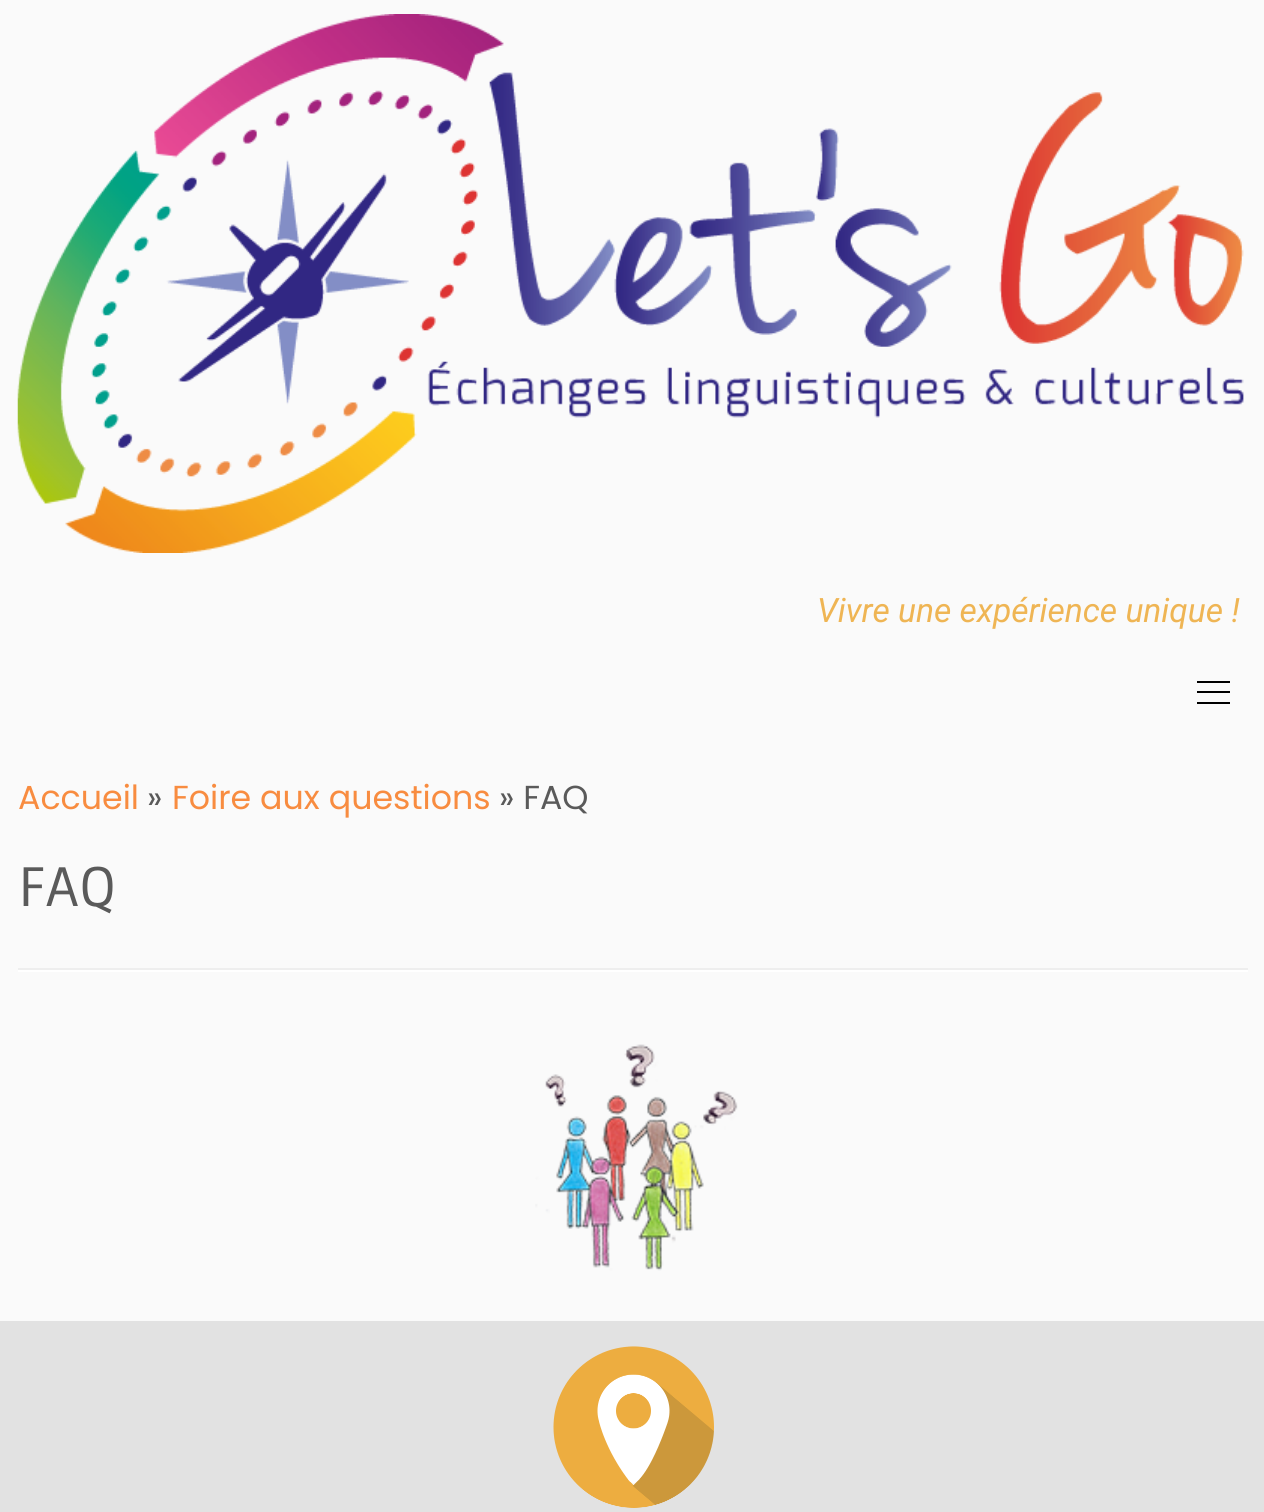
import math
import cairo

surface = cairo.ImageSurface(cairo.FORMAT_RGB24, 1264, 1512)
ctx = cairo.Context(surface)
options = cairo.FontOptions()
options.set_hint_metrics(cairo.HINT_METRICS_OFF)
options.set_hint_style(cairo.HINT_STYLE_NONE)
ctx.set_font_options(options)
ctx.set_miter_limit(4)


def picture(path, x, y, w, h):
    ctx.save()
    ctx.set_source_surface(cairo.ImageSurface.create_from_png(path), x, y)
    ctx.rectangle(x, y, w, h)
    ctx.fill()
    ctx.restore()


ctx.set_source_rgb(0.98, 0.98, 0.98)
ctx.paint()
picture("img1.png", 17, 14, 1227, 539)
ctx.select_font_face("Roboto", cairo.FONT_SLANT_ITALIC)
ctx.set_font_size(33.6)
ctx.set_source_rgb(0.937, 0.71, 0.329)
ctx.move_to(817, 622)
ctx.show_text("Vivre une expérience unique !")
ctx.set_source_rgb(0, 0, 0)
ctx.rectangle(1197, 681, 33, 2)
ctx.fill()
ctx.rectangle(1197, 691, 33, 2)
ctx.fill()
ctx.rectangle(1197, 702, 33, 2)
ctx.fill()
ctx.select_font_face("Poppins")
ctx.set_font_size(33.25)
ctx.set_source_rgb(0.969, 0.549, 0.251)
ctx.move_to(18, 809)
ctx.show_text("Accueil")
ctx.set_source_rgb(0.353, 0.353, 0.353)
ctx.move_to(147, 809)
ctx.show_text("»")
ctx.set_source_rgb(0.969, 0.549, 0.251)
ctx.move_to(172, 809)
ctx.show_text("Foire aux questions")
ctx.set_source_rgb(0.353, 0.353, 0.353)
ctx.move_to(499, 809)
ctx.show_text("» FAQ")
ctx.select_font_face("Sintony")
ctx.set_font_size(53)
ctx.move_to(18, 906)
ctx.show_text("FAQ")
ctx.set_source_rgb(0.933, 0.933, 0.933)
ctx.rectangle(18, 968, 1230, 2)
ctx.fill()
ctx.set_source_rgb(1, 1, 1)
ctx.rectangle(18, 970, 1230, 2)
ctx.fill()
picture("img2.png", 535, 1044, 203, 227)
ctx.set_source_rgb(0.886, 0.886, 0.886)
ctx.rectangle(0, 1321, 1264, 191)
ctx.fill()
picture("img3.png", 553, 1346, 161, 162)
surface.write_to_png("page.png")
